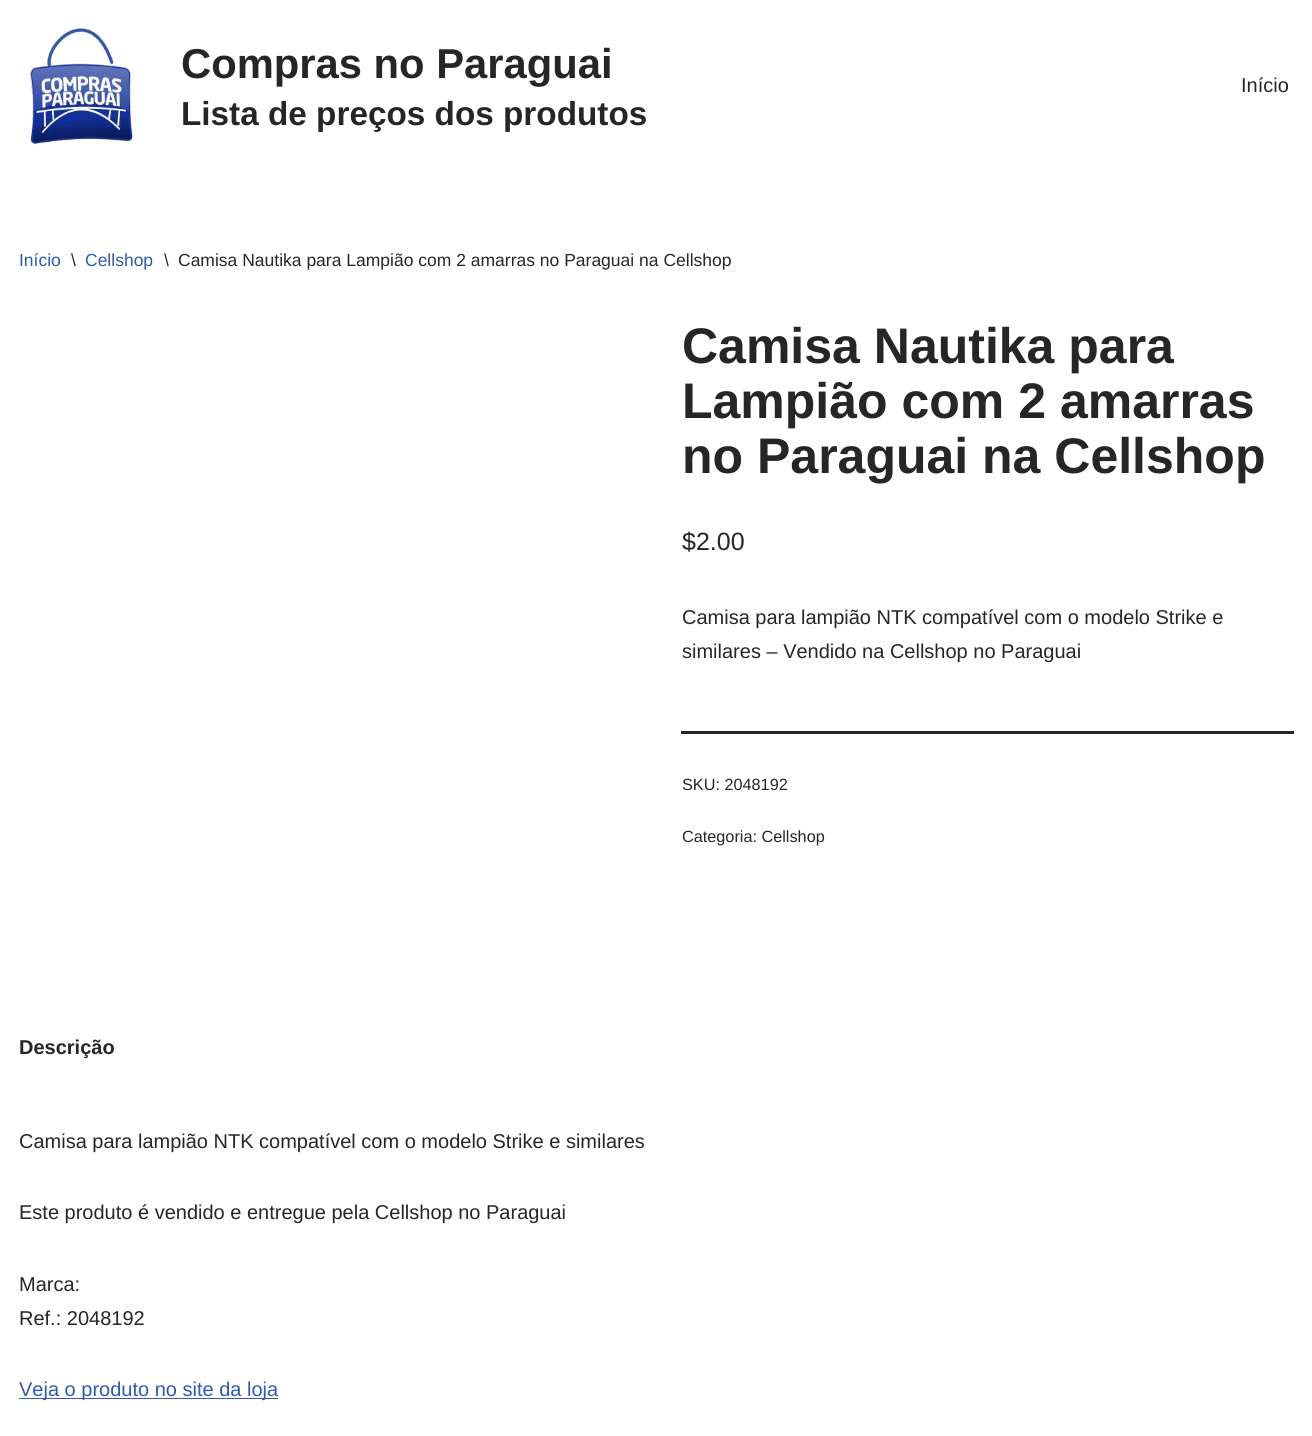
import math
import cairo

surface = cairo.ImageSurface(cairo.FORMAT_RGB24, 1312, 1436)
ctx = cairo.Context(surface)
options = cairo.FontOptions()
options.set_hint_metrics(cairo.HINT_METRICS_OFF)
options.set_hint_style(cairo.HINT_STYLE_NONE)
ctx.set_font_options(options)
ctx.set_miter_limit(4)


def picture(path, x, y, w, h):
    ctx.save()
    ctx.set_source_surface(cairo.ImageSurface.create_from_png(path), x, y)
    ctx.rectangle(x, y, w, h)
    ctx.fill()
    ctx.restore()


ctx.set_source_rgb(1, 1, 1)
ctx.paint()
picture("img1.png", 30, 28, 103, 116)
ctx.select_font_face("Liberation Sans", cairo.FONT_SLANT_NORMAL, cairo.FONT_WEIGHT_BOLD)
ctx.set_font_size(41.75)
ctx.set_source_rgb(0.153, 0.149, 0.149)
ctx.move_to(181, 78)
ctx.show_text("Compras no Paraguai")
ctx.set_font_size(33.3)
ctx.move_to(181, 125)
ctx.show_text("Lista de preços dos produtos")
ctx.select_font_face("Liberation Sans")
ctx.set_font_size(20)
ctx.move_to(1241, 92)
ctx.show_text("Início")
ctx.set_font_size(17.5)
ctx.set_source_rgb(0.184, 0.353, 0.682)
ctx.move_to(19, 266)
ctx.show_text("Início")
ctx.set_source_rgb(0.153, 0.149, 0.149)
ctx.move_to(71, 266)
ctx.show_text("\\")
ctx.set_source_rgb(0.184, 0.353, 0.682)
ctx.move_to(85, 266)
ctx.show_text("Cellshop")
ctx.set_source_rgb(0.153, 0.149, 0.149)
ctx.move_to(164, 266)
ctx.show_text("\\")
ctx.move_to(178, 266)
ctx.show_text("Camisa Nautika para Lampião com 2 amarras no Paraguai na Cellshop")
ctx.select_font_face("Liberation Sans", cairo.FONT_SLANT_NORMAL, cairo.FONT_WEIGHT_BOLD)
ctx.set_font_size(50)
ctx.move_to(682, 363)
ctx.show_text("Camisa Nautika para")
ctx.move_to(682, 418)
ctx.show_text("Lampião com 2 amarras")
ctx.move_to(682, 473)
ctx.show_text("no Paraguai na Cellshop")
ctx.select_font_face("Liberation Sans")
ctx.set_font_size(25)
ctx.move_to(682, 550)
ctx.show_text("$2.00")
ctx.set_font_size(20)
ctx.move_to(682, 624)
ctx.show_text("Camisa para lampião NTK compatível com o modelo Strike e")
ctx.move_to(682, 658)
ctx.show_text("similares – Vendido na Cellshop no Paraguai")
ctx.rectangle(681, 731, 613, 3)
ctx.fill()
ctx.set_font_size(16.25)
ctx.move_to(682, 790)
ctx.show_text("SKU: 2048192")
ctx.move_to(682, 842)
ctx.show_text("Categoria: Cellshop")
ctx.select_font_face("Liberation Sans", cairo.FONT_SLANT_NORMAL, cairo.FONT_WEIGHT_BOLD)
ctx.set_font_size(20)
ctx.move_to(19, 1054)
ctx.show_text("Descrição")
ctx.select_font_face("Liberation Sans")
ctx.move_to(19, 1148)
ctx.show_text("Camisa para lampião NTK compatível com o modelo Strike e similares")
ctx.move_to(19, 1219)
ctx.show_text("Este produto é vendido e entregue pela Cellshop no Paraguai")
ctx.move_to(19, 1291)
ctx.show_text("Marca:")
ctx.move_to(19, 1325)
ctx.show_text("Ref.: 2048192")
ctx.set_source_rgb(0.184, 0.353, 0.682)
ctx.rectangle(19, 1398, 259, 1)
ctx.fill()
ctx.move_to(19, 1396)
ctx.show_text("Veja o produto no site da loja")
surface.write_to_png("page.png")
